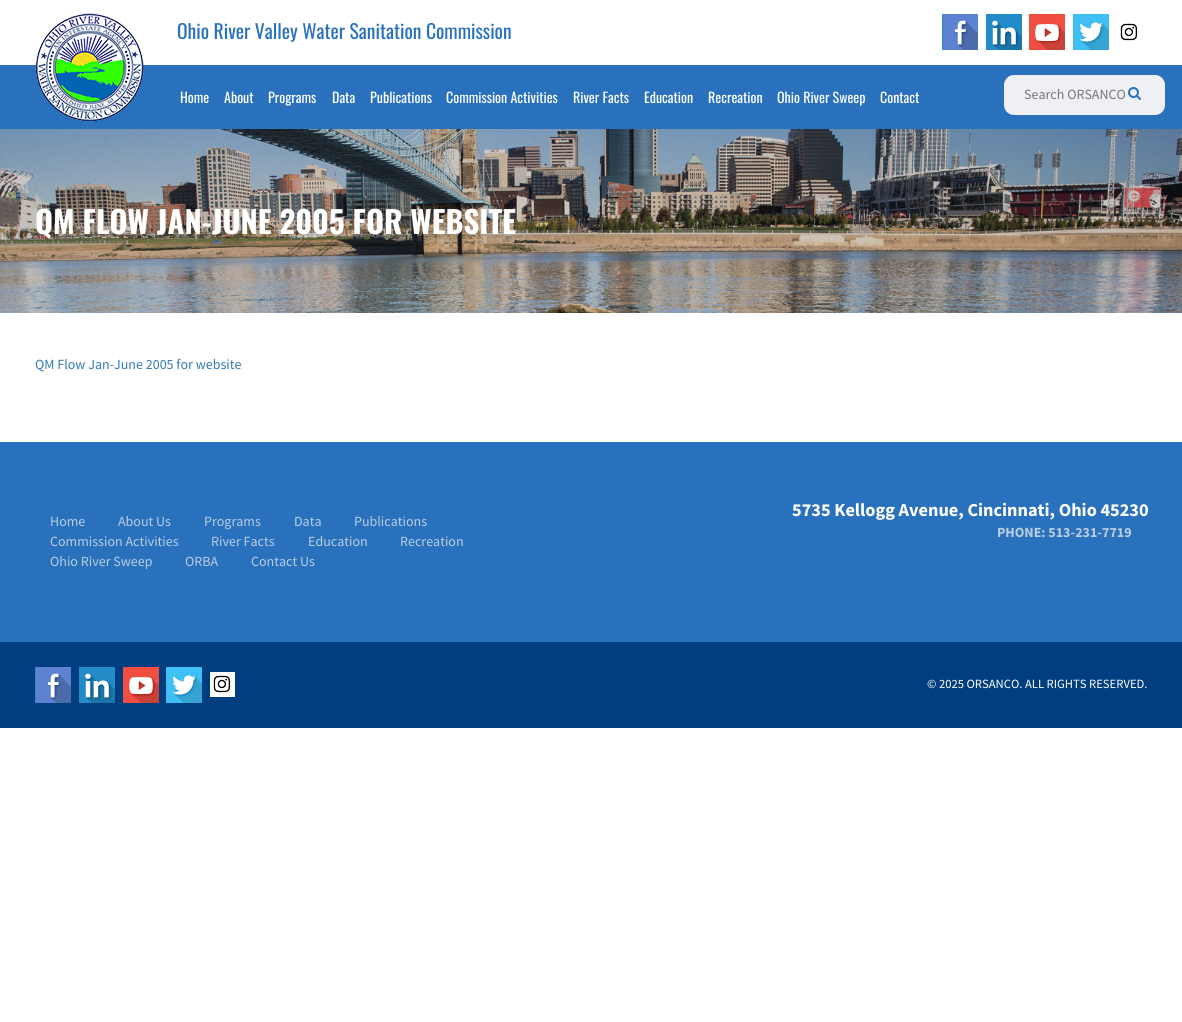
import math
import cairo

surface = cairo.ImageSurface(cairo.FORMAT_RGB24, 1182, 1022)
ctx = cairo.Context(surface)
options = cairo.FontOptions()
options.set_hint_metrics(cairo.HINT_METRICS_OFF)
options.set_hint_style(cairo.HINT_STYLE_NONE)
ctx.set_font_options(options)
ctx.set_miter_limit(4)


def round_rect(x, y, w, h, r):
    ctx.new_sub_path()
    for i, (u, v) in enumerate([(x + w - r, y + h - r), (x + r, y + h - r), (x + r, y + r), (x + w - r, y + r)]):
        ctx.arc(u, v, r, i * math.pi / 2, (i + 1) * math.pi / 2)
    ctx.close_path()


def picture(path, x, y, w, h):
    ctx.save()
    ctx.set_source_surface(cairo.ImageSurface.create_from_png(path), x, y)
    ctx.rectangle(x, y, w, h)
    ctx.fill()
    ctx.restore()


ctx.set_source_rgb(1, 1, 1)
ctx.paint()
ctx.set_source_rgb(0.161, 0.443, 0.737)
ctx.rectangle(0, 65, 1182, 64)
ctx.fill()
picture("img1.png", 35, 13, 109, 109)
ctx.select_font_face("Oswald")
ctx.set_font_size(19.6)
ctx.move_to(177, 39)
ctx.show_text("Ohio River Valley Water Sanitation Commission")
picture("img2.png", 942, 14, 36, 36)
picture("img3.png", 986, 14, 36, 36)
picture("img4.png", 1029, 14, 36, 36)
picture("img5.png", 1073, 14, 36, 36)
picture("img6.png", 1117, 20, 24, 23)
ctx.set_font_size(14)
ctx.set_source_rgb(1, 1, 1)
ctx.move_to(180, 103)
ctx.show_text("Home")
ctx.move_to(224, 103)
ctx.show_text("About")
ctx.move_to(268, 103)
ctx.show_text("Programs")
ctx.move_to(332, 103)
ctx.show_text("Data")
ctx.move_to(370, 103)
ctx.show_text("Publications")
ctx.move_to(446, 103)
ctx.show_text("Commission Activities")
ctx.move_to(573, 103)
ctx.show_text("River Facts")
ctx.move_to(644, 103)
ctx.show_text("Education")
ctx.move_to(708, 103)
ctx.show_text("Recreation")
ctx.move_to(777, 103)
ctx.show_text("Ohio River Sweep")
ctx.move_to(880, 103)
ctx.show_text("Contact")
ctx.set_source_rgb(0.937, 0.941, 0.953)
round_rect(1004, 75, 161, 40, 10)
ctx.fill()
ctx.select_font_face("Source Sans Pro")
ctx.set_source_rgb(0.467, 0.467, 0.467)
ctx.move_to(1024, 99)
ctx.show_text("Search ORSANCO")
picture("img7.png", 1128, 87, 13, 13)
picture("img8.png", 0, 129, 1182, 184)
ctx.select_font_face("Oswald", cairo.FONT_SLANT_NORMAL, cairo.FONT_WEIGHT_BOLD)
ctx.set_font_size(30.75)
ctx.set_source_rgb(1, 1, 1)
ctx.move_to(35, 234)
ctx.show_text("QM FLOW JAN-JUNE 2005 FOR WEBSITE")
ctx.select_font_face("Source Sans Pro")
ctx.set_font_size(14)
ctx.set_source_rgb(0.2, 0.478, 0.718)
ctx.move_to(35, 369)
ctx.show_text("QM Flow Jan-June 2005 for website")
ctx.set_source_rgb(0.161, 0.443, 0.737)
ctx.rectangle(0, 442, 1182, 200)
ctx.fill()
ctx.set_source_rgb(0.729, 0.804, 0.882)
ctx.move_to(50, 526)
ctx.show_text("Home")
ctx.move_to(118, 526)
ctx.show_text("About Us")
ctx.move_to(204, 526)
ctx.show_text("Programs")
ctx.move_to(294, 526)
ctx.show_text("Data")
ctx.move_to(354, 526)
ctx.show_text("Publications")
ctx.move_to(50, 546)
ctx.show_text("Commission Activities")
ctx.move_to(211, 546)
ctx.show_text("River Facts")
ctx.move_to(308, 546)
ctx.show_text("Education")
ctx.move_to(400, 546)
ctx.show_text("Recreation")
ctx.move_to(50, 566)
ctx.show_text("Ohio River Sweep")
ctx.move_to(185, 566)
ctx.show_text("ORBA")
ctx.move_to(251, 566)
ctx.show_text("Contact Us")
ctx.select_font_face("Source Sans Pro", cairo.FONT_SLANT_NORMAL, cairo.FONT_WEIGHT_BOLD)
ctx.set_font_size(18.25)
ctx.set_source_rgb(1, 1, 1)
ctx.move_to(792, 516)
ctx.show_text("5735 Kellogg Avenue, Cincinnati, Ohio 45230")
ctx.set_font_size(14)
ctx.set_source_rgb(0.729, 0.804, 0.882)
ctx.move_to(997, 537)
ctx.show_text("PHONE: 513-231-7719")
ctx.set_source_rgb(0, 0.243, 0.498)
ctx.rectangle(0, 642, 1182, 86)
ctx.fill()
picture("img2.png", 35, 667, 36, 36)
picture("img3.png", 79, 667, 36, 36)
picture("img4.png", 123, 667, 36, 36)
picture("img5.png", 166, 667, 36, 36)
picture("img9.png", 210, 672, 25, 25)
ctx.select_font_face("Source Sans Pro")
ctx.set_font_size(12.6)
ctx.set_source_rgb(1, 1, 1)
ctx.move_to(927, 688)
ctx.show_text("© 2025 ORSANCO. ALL RIGHTS RESERVED.")
surface.write_to_png("page.png")
